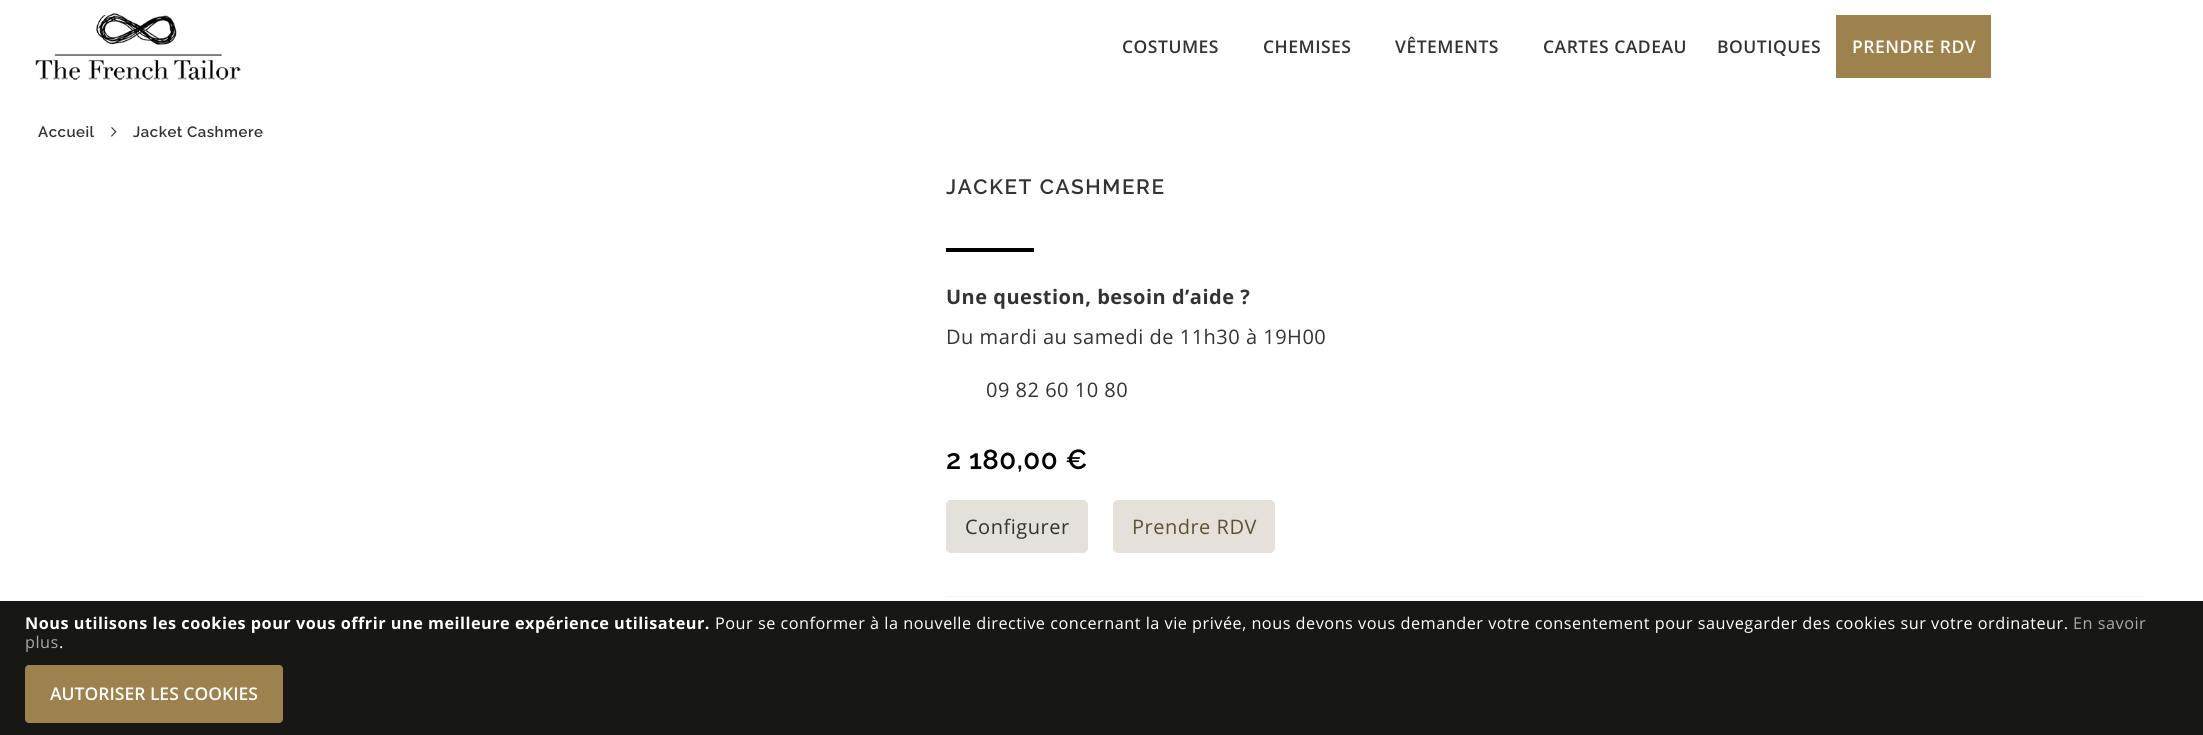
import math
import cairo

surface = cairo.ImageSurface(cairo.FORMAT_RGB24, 2203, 735)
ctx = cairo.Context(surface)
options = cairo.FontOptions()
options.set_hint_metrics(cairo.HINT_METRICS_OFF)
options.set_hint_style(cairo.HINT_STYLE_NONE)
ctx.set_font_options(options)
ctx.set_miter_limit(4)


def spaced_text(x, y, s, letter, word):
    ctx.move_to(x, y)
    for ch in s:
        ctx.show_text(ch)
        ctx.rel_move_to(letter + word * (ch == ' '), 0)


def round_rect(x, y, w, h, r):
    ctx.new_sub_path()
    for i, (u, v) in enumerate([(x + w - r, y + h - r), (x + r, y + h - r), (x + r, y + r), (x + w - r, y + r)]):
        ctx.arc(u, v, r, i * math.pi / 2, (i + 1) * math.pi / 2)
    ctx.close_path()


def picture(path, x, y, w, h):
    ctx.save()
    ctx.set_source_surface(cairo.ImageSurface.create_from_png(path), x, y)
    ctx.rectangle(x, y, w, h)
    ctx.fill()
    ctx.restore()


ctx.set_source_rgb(1, 1, 1)
ctx.paint()
picture("img1.png", 35, 13, 206, 67)
ctx.select_font_face("Open Sans SemiBold")
ctx.set_font_size(17.5)
ctx.set_source_rgb(0.2, 0.2, 0.2)
spaced_text(1122, 53, "COSTUMES", 0.5, 0)
spaced_text(1263, 53, "CHEMISES", 0.5, 0)
spaced_text(1395, 53, "VÊTEMENTS", 0.5, 0)
spaced_text(1543, 53, "CARTES CADEAU", 0.5, 0)
spaced_text(1717, 53, "BOUTIQUES", 0.5, 0)
ctx.set_source_rgb(0.616, 0.51, 0.306)
ctx.rectangle(1836, 15, 155, 63)
ctx.fill()
ctx.set_source_rgb(1, 1, 1)
spaced_text(1852, 53, "PRENDRE RDV", 0.5, 0)
ctx.select_font_face("Raleway Thin")
ctx.set_font_size(15)
ctx.set_source_rgb(0.2, 0.2, 0.2)
spaced_text(38, 137, "Accueil", 0.5, 0)
picture("img2.png", 111, 127, 6, 10)
spaced_text(133, 137, "Jacket Cashmere", 0.5, 0)
ctx.set_font_size(20.75)
spaced_text(946, 194, "JACKET CASHMERE", 1.6, 0)
ctx.set_source_rgb(0, 0, 0)
ctx.rectangle(946, 248, 88, 4)
ctx.fill()
ctx.select_font_face("Open Sans", cairo.FONT_SLANT_NORMAL, cairo.FONT_WEIGHT_BOLD)
ctx.set_font_size(20)
ctx.set_source_rgb(0.2, 0.2, 0.2)
spaced_text(946, 304, "Une question, besoin d’aide ?", 0.5, 0)
ctx.select_font_face("Open Sans")
spaced_text(946, 344, "Du mardi au samedi de 11h30 à 19H00", 0.5, 0)
spaced_text(986, 397, "09 82 60 10 80", 0.5, 0)
ctx.select_font_face("Raleway Thin")
ctx.set_font_size(27.5)
ctx.set_source_rgb(0, 0, 0)
spaced_text(946, 469, "2 180,00 €", 0.5, 0)
ctx.set_source_rgb(0.961, 0.961, 0.961)
ctx.rectangle(946, 596, 1199, 1)
ctx.fill()
ctx.set_source_rgb(0.898, 0.878, 0.855)
round_rect(946, 500, 142, 53, 5)
ctx.fill()
ctx.select_font_face("Open Sans")
ctx.set_font_size(20)
ctx.set_source_rgb(0.2, 0.2, 0.2)
spaced_text(965, 534, "Configurer", 0.5, 0)
ctx.set_source_rgb(0.898, 0.878, 0.855)
round_rect(1113, 500, 162, 53, 5)
ctx.fill()
ctx.set_source_rgb(0.373, 0.318, 0.204)
spaced_text(1132, 534, "Prendre RDV", 0.5, 0)
ctx.set_source_rgb(0.09, 0.09, 0.086)
ctx.rectangle(0, 601, 2203, 134)
ctx.fill()
ctx.select_font_face("Open Sans", cairo.FONT_SLANT_NORMAL, cairo.FONT_WEIGHT_BOLD)
ctx.set_font_size(16.25)
ctx.set_source_rgb(1, 1, 1)
spaced_text(25, 629, "Nous utilisons les cookies pour vous offrir une meilleure expérience utilisateur.", 0.5, 0)
ctx.select_font_face("Open Sans")
spaced_text(715, 629, "Pour se conformer à la nouvelle directive concernant la vie privée, nous devons vous demander votre consentement pour sauvegarder des cookies sur votre ordinateur.", 0.5, 0)
ctx.set_source_rgb(0.667, 0.667, 0.667)
spaced_text(2073, 629, "En savoir", 0.5, 0)
spaced_text(25, 648, "plus", 0.5, 0)
ctx.set_source_rgb(1, 1, 1)
spaced_text(59, 648, ".", 0.5, 0)
ctx.set_source_rgb(0.616, 0.51, 0.306)
round_rect(25, 665, 258, 58, 4)
ctx.fill()
ctx.select_font_face("Open Sans SemiBold")
ctx.set_font_size(17.5)
ctx.set_source_rgb(1, 1, 1)
ctx.move_to(50, 700)
ctx.show_text("AUTORISER LES COOKIES")
surface.write_to_png("page.png")
